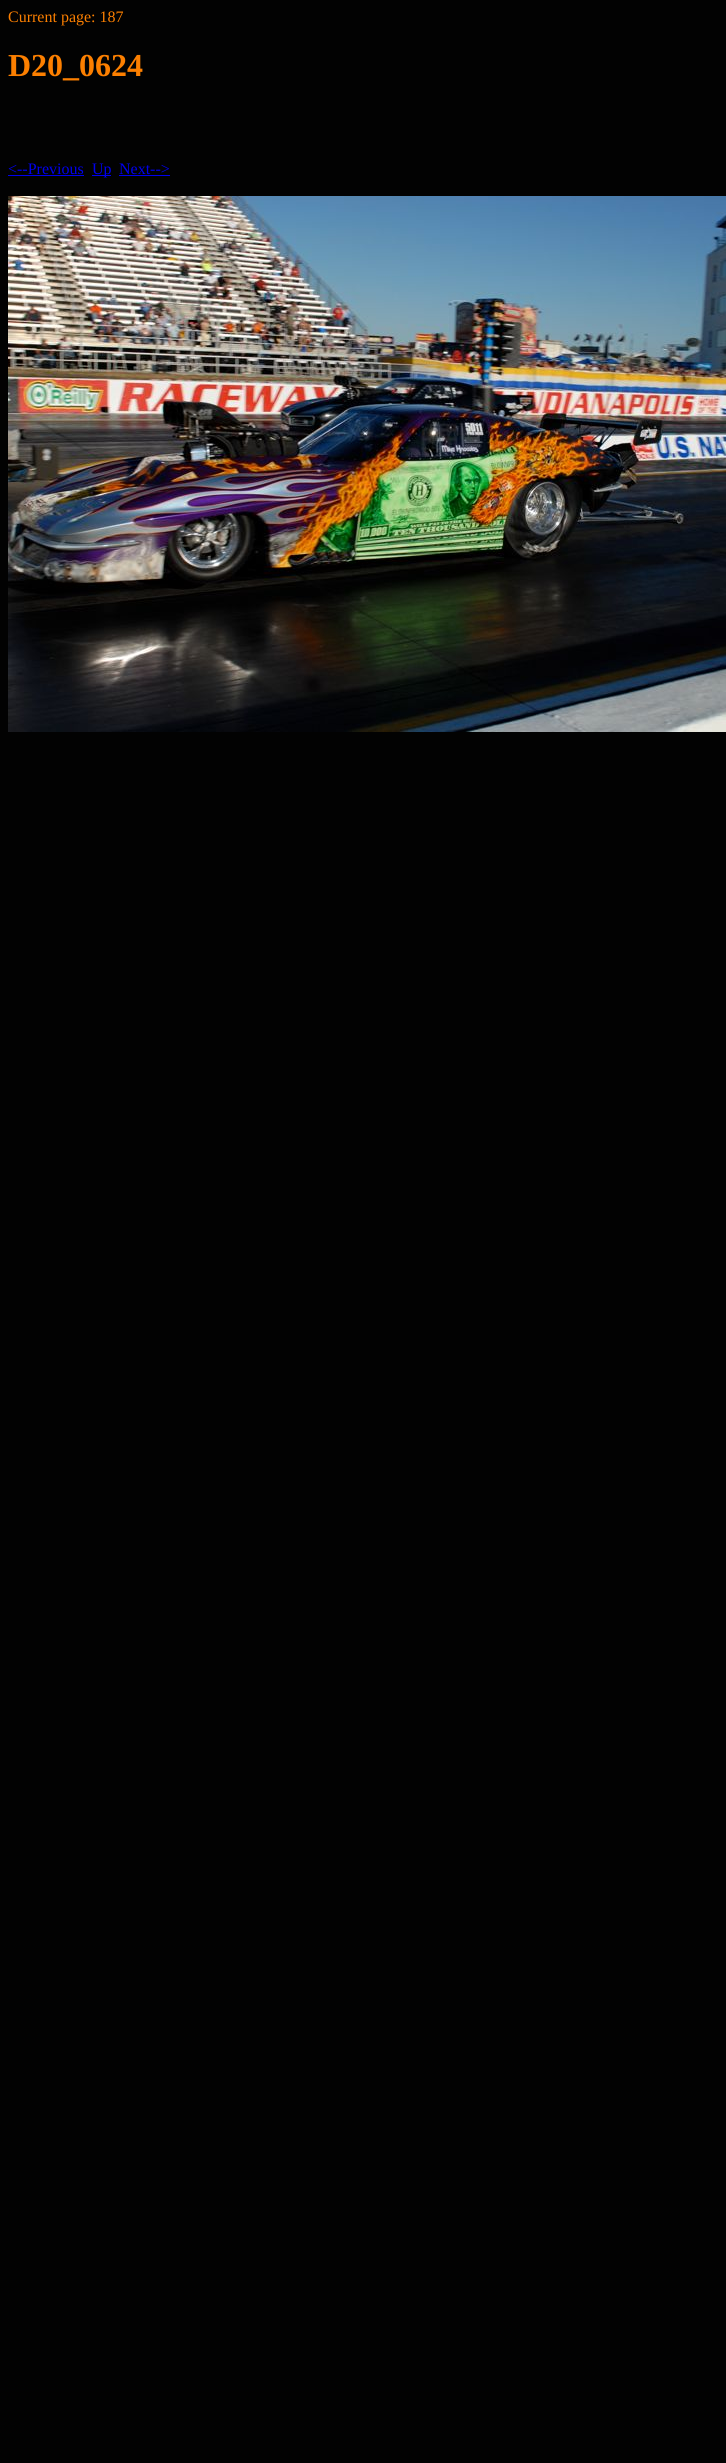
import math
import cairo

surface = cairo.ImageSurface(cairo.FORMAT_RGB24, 726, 2463)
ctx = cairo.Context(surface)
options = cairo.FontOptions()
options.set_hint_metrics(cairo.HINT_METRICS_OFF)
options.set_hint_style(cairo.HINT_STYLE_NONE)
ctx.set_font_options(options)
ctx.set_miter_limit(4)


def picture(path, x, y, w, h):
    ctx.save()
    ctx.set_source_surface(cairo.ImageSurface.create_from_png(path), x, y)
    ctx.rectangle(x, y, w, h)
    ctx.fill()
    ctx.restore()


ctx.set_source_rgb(0.008, 0.008, 0.008)
ctx.paint()
ctx.select_font_face("Liberation Serif")
ctx.set_font_size(16)
ctx.set_source_rgb(0.988, 0.498, 0)
ctx.move_to(8, 22)
ctx.show_text("Current page: 187")
ctx.select_font_face("Liberation Serif", cairo.FONT_SLANT_NORMAL, cairo.FONT_WEIGHT_BOLD)
ctx.set_font_size(32)
ctx.move_to(8, 76)
ctx.show_text("D20_0624")
ctx.select_font_face("Liberation Serif")
ctx.set_font_size(16)
ctx.set_source_rgb(0, 0, 0.933)
ctx.move_to(8, 174)
ctx.show_text("<--Previous")
ctx.rectangle(8, 175, 76, 1)
ctx.fill()
ctx.rectangle(92, 175, 19, 1)
ctx.fill()
ctx.move_to(92, 174)
ctx.show_text("Up")
ctx.move_to(119, 174)
ctx.show_text("Next-->")
ctx.rectangle(119, 175, 51, 1)
ctx.fill()
picture("img1.png", 8, 196, 718, 536)
surface.write_to_png("page.png")
